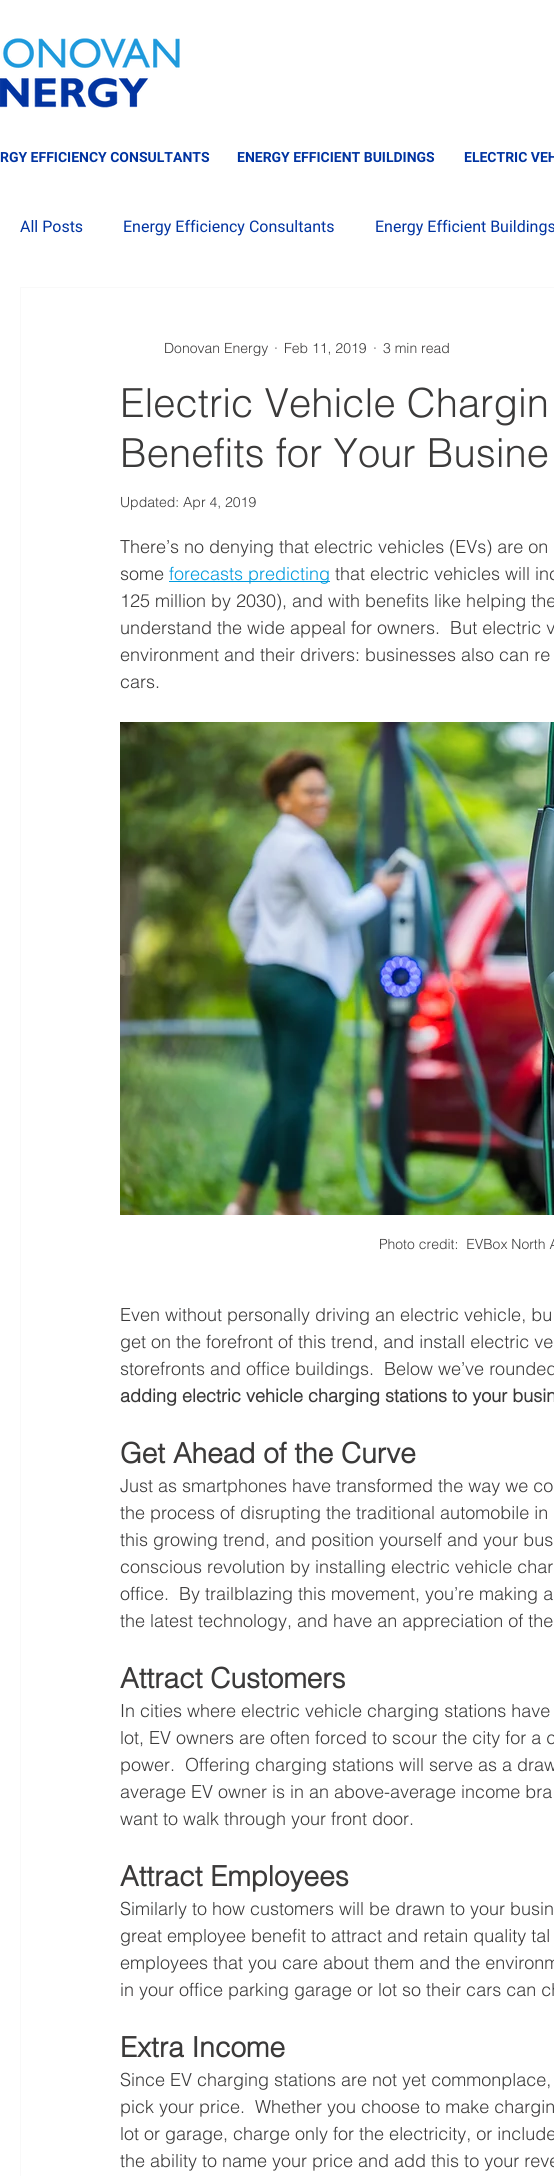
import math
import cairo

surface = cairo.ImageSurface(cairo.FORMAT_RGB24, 554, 2176)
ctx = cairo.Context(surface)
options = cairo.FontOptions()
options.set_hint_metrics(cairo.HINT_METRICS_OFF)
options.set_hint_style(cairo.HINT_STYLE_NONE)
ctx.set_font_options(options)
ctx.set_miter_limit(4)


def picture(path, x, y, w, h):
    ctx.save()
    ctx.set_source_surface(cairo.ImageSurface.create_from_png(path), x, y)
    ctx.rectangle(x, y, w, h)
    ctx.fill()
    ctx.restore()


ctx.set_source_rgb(1, 1, 1)
ctx.paint()
picture("img1.png", 0, 38, 180, 70)
ctx.select_font_face("Roboto", cairo.FONT_SLANT_NORMAL, cairo.FONT_WEIGHT_BOLD)
ctx.set_font_size(14)
ctx.set_source_rgb(0, 0.2, 0.631)
ctx.move_to(0, 162)
ctx.show_text("RGY EFFICIENCY CONSULTANTS")
ctx.move_to(237, 162)
ctx.show_text("ENERGY EFFICIENT BUILDINGS")
ctx.move_to(464, 162)
ctx.show_text("ELECTRIC VEH")
ctx.select_font_face("Roboto")
ctx.set_font_size(16)
ctx.move_to(20, 232)
ctx.show_text("All Posts")
ctx.move_to(123, 232)
ctx.show_text("Energy Efficiency Consultants")
ctx.move_to(375, 232)
ctx.show_text("Energy Efficient Buildings")
ctx.rectangle(20.5, 287.5, 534, 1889)
ctx.set_source_rgb(0.976, 0.976, 0.976)
ctx.set_line_width(1)
ctx.stroke()
ctx.select_font_face("helvetica Light")
ctx.set_font_size(14)
ctx.set_source_rgb(0.231, 0.227, 0.227)
ctx.move_to(164, 353)
ctx.show_text("Donovan Energy")
ctx.move_to(274, 353)
ctx.show_text("·")
ctx.move_to(284, 353)
ctx.show_text("Feb 11, 2019")
ctx.move_to(373, 353)
ctx.show_text("·")
ctx.move_to(383, 353)
ctx.show_text("3 min read")
ctx.set_font_size(40)
ctx.move_to(120, 417)
ctx.show_text("Electric Vehicle Chargin")
ctx.move_to(120, 467)
ctx.show_text("Benefits for Your Busine")
ctx.set_font_size(14)
ctx.move_to(120, 507)
ctx.show_text("Updated: Apr 4, 2019")
ctx.set_font_size(18)
ctx.move_to(120, 553)
ctx.show_text("There’s no denying that electric vehicles (EVs) are on")
ctx.move_to(120, 580)
ctx.show_text("some")
ctx.set_source_rgb(0, 0.604, 0.871)
ctx.rectangle(169, 581, 161, 1)
ctx.fill()
ctx.move_to(169, 580)
ctx.show_text("forecasts predicting")
ctx.set_source_rgb(0.231, 0.227, 0.227)
ctx.move_to(335, 580)
ctx.show_text("that electric vehicles will inc")
ctx.move_to(120, 607)
ctx.show_text("125 million by 2030), and with benefits like helping the")
ctx.move_to(120, 634)
ctx.show_text("understand the wide appeal for owners.  But electric v")
ctx.move_to(120, 661)
ctx.show_text("environment and their drivers: businesses also can re")
ctx.move_to(120, 688)
ctx.show_text("cars.")
picture("img2.png", 120, 722, 434, 493)
ctx.set_font_size(14)
ctx.move_to(379, 1249)
ctx.show_text("Photo credit:  EVBox North A")
ctx.set_font_size(18)
ctx.move_to(120, 1321)
ctx.show_text("Even without personally driving an electric vehicle, bu")
ctx.move_to(120, 1348)
ctx.show_text("get on the forefront of this trend, and install electric ve")
ctx.move_to(120, 1375)
ctx.show_text("storefronts and office buildings.  Below we’ve rounded")
ctx.select_font_face("helvetica", cairo.FONT_SLANT_NORMAL, cairo.FONT_WEIGHT_BOLD)
ctx.move_to(120, 1402)
ctx.show_text("adding electric vehicle charging stations to your busin")
ctx.set_font_size(28)
ctx.move_to(120, 1463)
ctx.show_text("Get Ahead of the Curve")
ctx.select_font_face("helvetica Light")
ctx.set_font_size(18)
ctx.move_to(120, 1492)
ctx.show_text("Just as smartphones have transformed the way we co")
ctx.move_to(120, 1519)
ctx.show_text("the process of disrupting the traditional automobile in")
ctx.move_to(120, 1546)
ctx.show_text("this growing trend, and position yourself and your bus")
ctx.move_to(120, 1573)
ctx.show_text("conscious revolution by installing electric vehicle char")
ctx.move_to(120, 1600)
ctx.show_text("office.  By trailblazing this movement, you’re making a")
ctx.move_to(120, 1627)
ctx.show_text("the latest technology, and have an appreciation of the")
ctx.select_font_face("helvetica", cairo.FONT_SLANT_NORMAL, cairo.FONT_WEIGHT_BOLD)
ctx.set_font_size(28)
ctx.move_to(120, 1688)
ctx.show_text("Attract Customers")
ctx.select_font_face("helvetica Light")
ctx.set_font_size(18)
ctx.move_to(120, 1717)
ctx.show_text("In cities where electric vehicle charging stations have")
ctx.move_to(120, 1744)
ctx.show_text("lot, EV owners are often forced to scour the city for a c")
ctx.move_to(120, 1771)
ctx.show_text("power.  Offering charging stations will serve as a draw")
ctx.move_to(120, 1798)
ctx.show_text("average EV owner is in an above-average income bra")
ctx.move_to(120, 1825)
ctx.show_text("want to walk through your front door.")
ctx.select_font_face("helvetica", cairo.FONT_SLANT_NORMAL, cairo.FONT_WEIGHT_BOLD)
ctx.set_font_size(28)
ctx.move_to(120, 1886)
ctx.show_text("Attract Employees")
ctx.select_font_face("helvetica Light")
ctx.set_font_size(18)
ctx.move_to(120, 1915)
ctx.show_text("Similarly to how customers will be drawn to your busin")
ctx.move_to(120, 1942)
ctx.show_text("great employee benefit to attract and retain quality tal")
ctx.move_to(120, 1969)
ctx.show_text("employees that you care about them and the environm")
ctx.move_to(120, 1996)
ctx.show_text("in your office parking garage or lot so their cars can ch")
ctx.select_font_face("helvetica", cairo.FONT_SLANT_NORMAL, cairo.FONT_WEIGHT_BOLD)
ctx.set_font_size(28)
ctx.move_to(120, 2057)
ctx.show_text("Extra Income")
ctx.select_font_face("helvetica Light")
ctx.set_font_size(18)
ctx.move_to(120, 2086)
ctx.show_text("Since EV charging stations are not yet commonplace,")
ctx.move_to(120, 2113)
ctx.show_text("pick your price.  Whether you choose to make chargin")
ctx.move_to(120, 2140)
ctx.show_text("lot or garage, charge only for the electricity, or include")
ctx.move_to(120, 2167)
ctx.show_text("the ability to name your price and add this to your reve")
surface.write_to_png("page.png")
